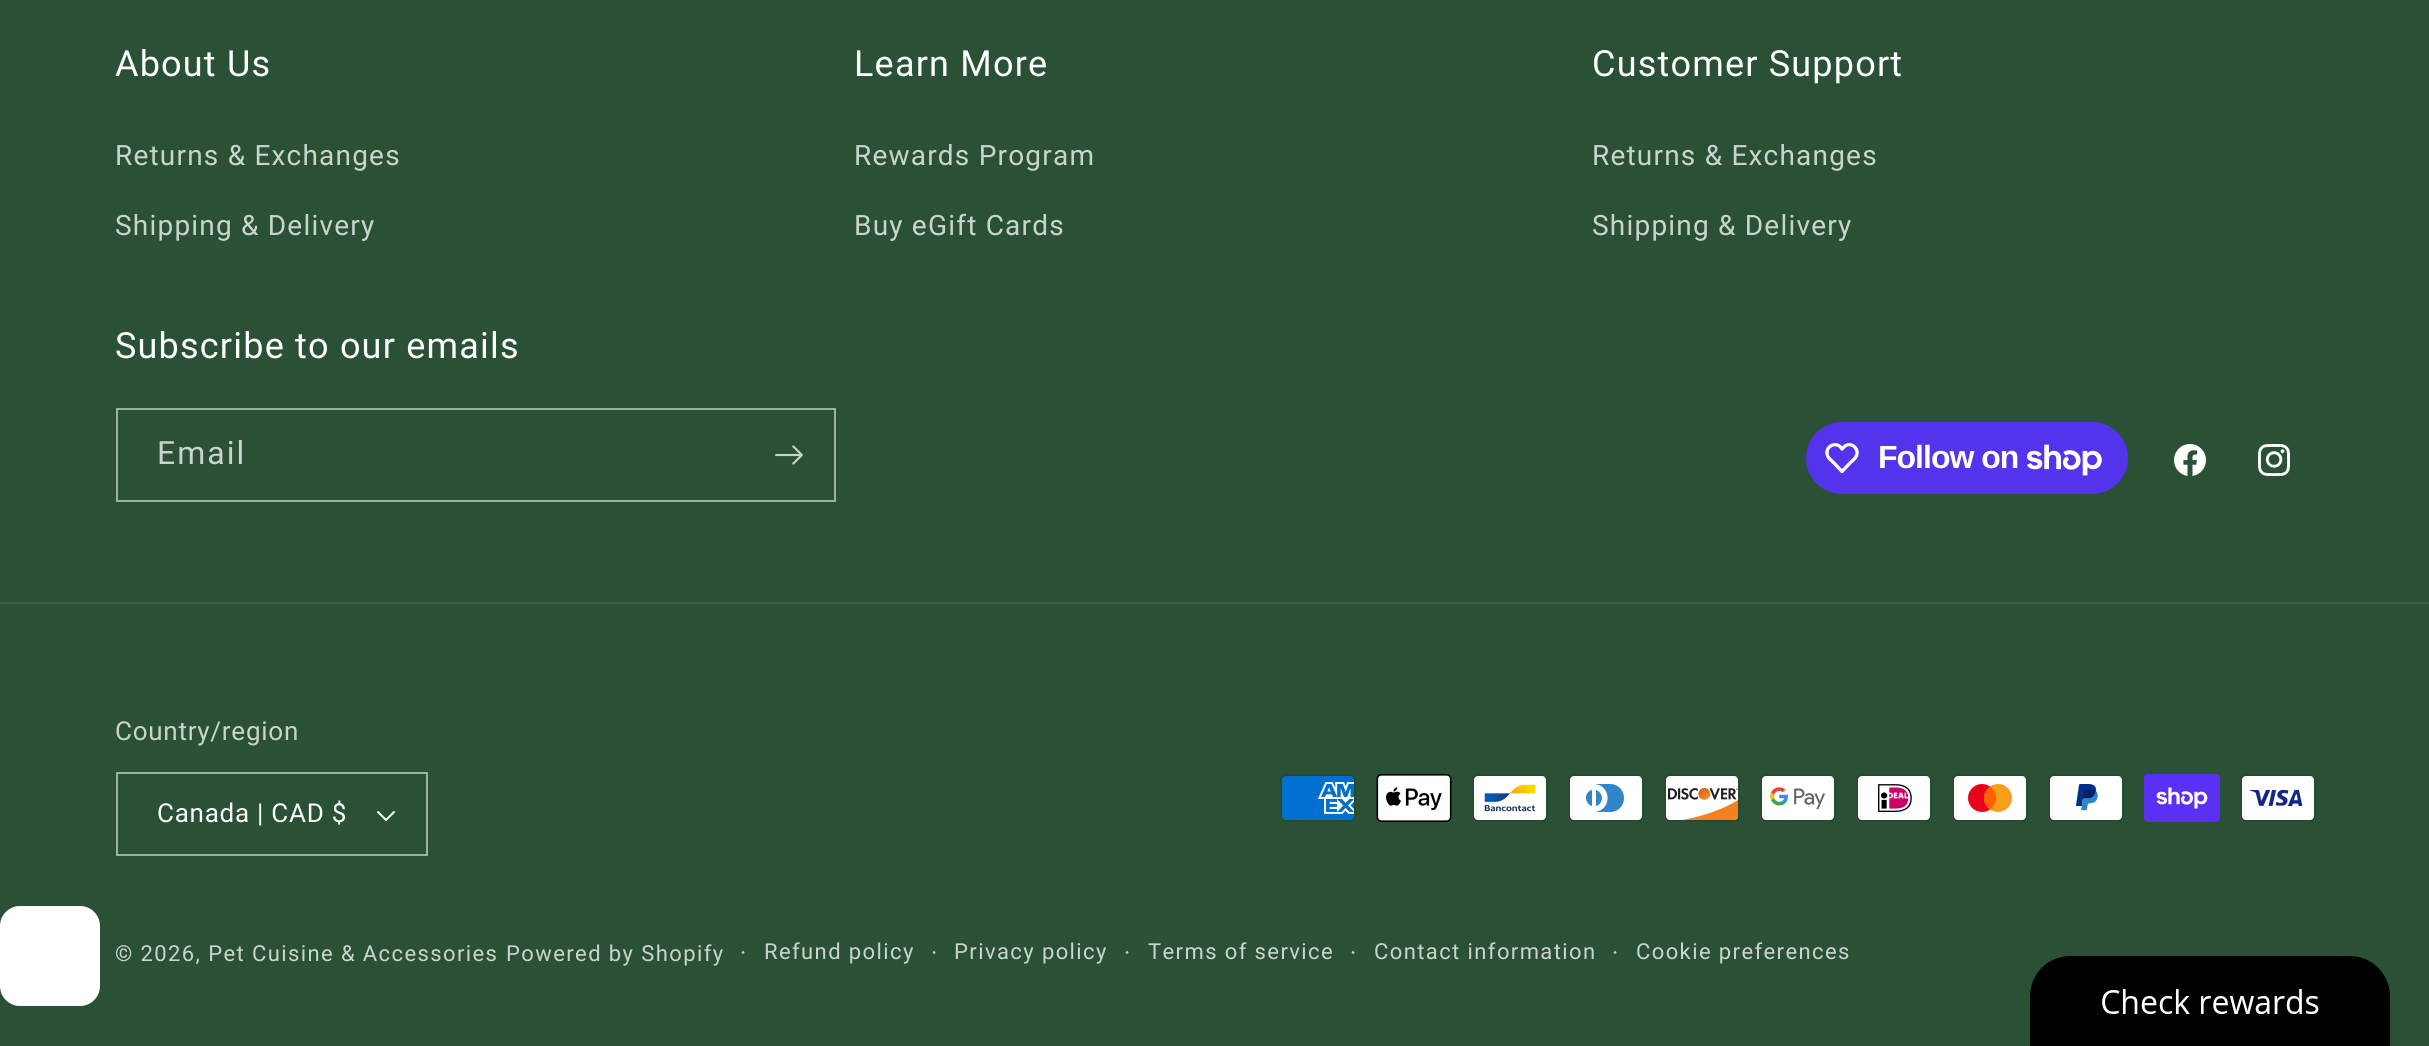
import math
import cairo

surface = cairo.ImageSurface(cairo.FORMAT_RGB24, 2429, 1046)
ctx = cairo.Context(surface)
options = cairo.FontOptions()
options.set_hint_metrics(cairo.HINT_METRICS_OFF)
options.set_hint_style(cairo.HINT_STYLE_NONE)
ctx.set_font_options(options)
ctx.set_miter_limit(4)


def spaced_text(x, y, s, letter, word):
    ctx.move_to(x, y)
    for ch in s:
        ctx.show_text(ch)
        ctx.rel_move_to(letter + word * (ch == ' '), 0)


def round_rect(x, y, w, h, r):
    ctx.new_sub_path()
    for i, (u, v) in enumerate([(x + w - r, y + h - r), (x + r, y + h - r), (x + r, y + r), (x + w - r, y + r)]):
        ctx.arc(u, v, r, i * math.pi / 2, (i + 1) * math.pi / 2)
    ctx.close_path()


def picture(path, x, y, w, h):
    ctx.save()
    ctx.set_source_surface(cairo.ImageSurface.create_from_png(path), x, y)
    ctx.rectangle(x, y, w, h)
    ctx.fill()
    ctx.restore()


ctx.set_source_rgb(0.165, 0.318, 0.208)
ctx.paint()
ctx.set_source_rgb(1, 1, 1)
round_rect(0, 906, 100, 100, 20)
ctx.fill()
ctx.select_font_face("Roboto")
ctx.set_font_size(36)
spaced_text(115, 76, "About Us", 1.2, 0)
ctx.set_font_size(28)
ctx.set_source_rgb(0.792, 0.831, 0.804)
spaced_text(115, 165, "Returns & Exchanges", 1.2, 0)
spaced_text(115, 235, "Shipping & Delivery", 1.2, 0)
ctx.set_font_size(36)
ctx.set_source_rgb(1, 1, 1)
spaced_text(854, 76, "Learn More", 1.2, 0)
ctx.set_font_size(28)
ctx.set_source_rgb(0.792, 0.831, 0.804)
spaced_text(854, 165, "Rewards Program", 1.2, 0)
spaced_text(854, 235, "Buy eGift Cards", 1.2, 0)
ctx.set_font_size(36)
ctx.set_source_rgb(1, 1, 1)
spaced_text(1592, 76, "Customer Support", 1.2, 0)
ctx.set_font_size(28)
ctx.set_source_rgb(0.792, 0.831, 0.804)
spaced_text(1592, 165, "Returns & Exchanges", 1.2, 0)
spaced_text(1592, 235, "Shipping & Delivery", 1.2, 0)
ctx.set_font_size(36)
ctx.set_source_rgb(1, 1, 1)
spaced_text(115, 358, "Subscribe to our emails", 1.2, 0)
ctx.rectangle(117, 409, 718, 92)
ctx.set_source_rgb(0.624, 0.694, 0.643)
ctx.stroke()
ctx.set_font_size(32)
ctx.set_source_rgb(0.792, 0.831, 0.804)
spaced_text(157, 464, "Email", 2, 0)
picture("img1.png", 775, 445, 28, 20)
ctx.set_source_rgb(0.329, 0.2, 0.922)
round_rect(1806, 422, 322, 72, 36)
ctx.fill()
ctx.new_path()
ctx.move_to(1840.5, 447)
ctx.line_to(1842, 449)
ctx.curve_to(1843.5, 447.5, 1845, 445.5, 1847, 445)
ctx.curve_to(1853, 443, 1859, 449.5, 1856.5, 455.5)
ctx.curve_to(1855.5, 458.5, 1852.5, 460.5, 1850.5, 462.5)
ctx.line_to(1842, 471.5)
ctx.line_to(1833.5, 462.5)
ctx.curve_to(1831.5, 460.5, 1828.5, 458.5, 1827.5, 455.5)
ctx.curve_to(1824.5, 447.5, 1834.5, 441, 1840.5, 447)
ctx.close_path()
ctx.set_source_rgb(1, 1, 1)
ctx.set_line_width(3.3)
ctx.set_line_join(cairo.LINE_JOIN_ROUND)
ctx.stroke()
ctx.select_font_face("Liberation Sans", cairo.FONT_SLANT_NORMAL, cairo.FONT_WEIGHT_BOLD)
spaced_text(1878, 468, "Follow on", -1, 0)
picture("img2.png", 2027, 444, 75, 32)
picture("img3.png", 2174, 444, 32, 32)
picture("img4.png", 2258, 444, 32, 32)
ctx.set_source_rgb(0.231, 0.373, 0.271)
ctx.rectangle(0, 602, 2429, 2)
ctx.fill()
ctx.select_font_face("Roboto")
ctx.set_font_size(26)
ctx.set_source_rgb(0.792, 0.831, 0.804)
spaced_text(115, 740, "Country/region", 0.75, 0)
picture("img5.png", 377, 811, 18, 10)
ctx.rectangle(117, 773, 310, 82)
ctx.set_source_rgb(0.624, 0.694, 0.643)
ctx.set_line_width(2)
ctx.set_line_join(cairo.LINE_JOIN_MITER)
ctx.stroke()
ctx.set_source_rgb(1, 1, 1)
spaced_text(157, 822, "Canada | CAD $", 0.75, 0)
picture("img6.png", 1280, 774, 76, 48)
picture("img7.png", 1376, 774, 76, 48)
picture("img8.png", 1472, 774, 76, 48)
picture("img9.png", 1568, 774, 76, 48)
picture("img10.png", 1664, 774, 76, 48)
picture("img11.png", 1760, 774, 76, 48)
picture("img12.png", 1856, 774, 76, 48)
picture("img13.png", 1952, 774, 76, 48)
picture("img14.png", 2048, 774, 76, 48)
picture("img15.png", 2144, 774, 76, 48)
picture("img16.png", 2240, 774, 76, 48)
ctx.set_font_size(22)
ctx.set_source_rgb(0.792, 0.831, 0.804)
spaced_text(115, 961, "© 2026, Pet Cuisine & Accessories", 1.4, 0)
spaced_text(506, 961, "Powered by Shopify", 1.4, 0)
ctx.set_font_size(24)
spaced_text(740, 961, "·", 1.4, 0)
ctx.set_font_size(22)
spaced_text(764, 959, "Refund policy", 1.4, 0)
ctx.set_font_size(24)
spaced_text(931, 961, "·", 1.4, 0)
ctx.set_font_size(22)
spaced_text(954, 959, "Privacy policy", 1.4, 0)
ctx.set_font_size(24)
spaced_text(1124, 961, "·", 1.4, 0)
ctx.set_font_size(22)
spaced_text(1148, 959, "Terms of service", 1.4, 0)
ctx.set_font_size(24)
spaced_text(1350, 961, "·", 1.4, 0)
ctx.set_font_size(22)
spaced_text(1374, 959, "Contact information", 1.4, 0)
ctx.set_font_size(24)
spaced_text(1612, 961, "·", 1.4, 0)
ctx.set_font_size(22)
spaced_text(1636, 959, "Cookie preferences", 1.4, 0)
picture("img17.png", 2030, 956, 360, 90)
surface.write_to_png("page.png")
